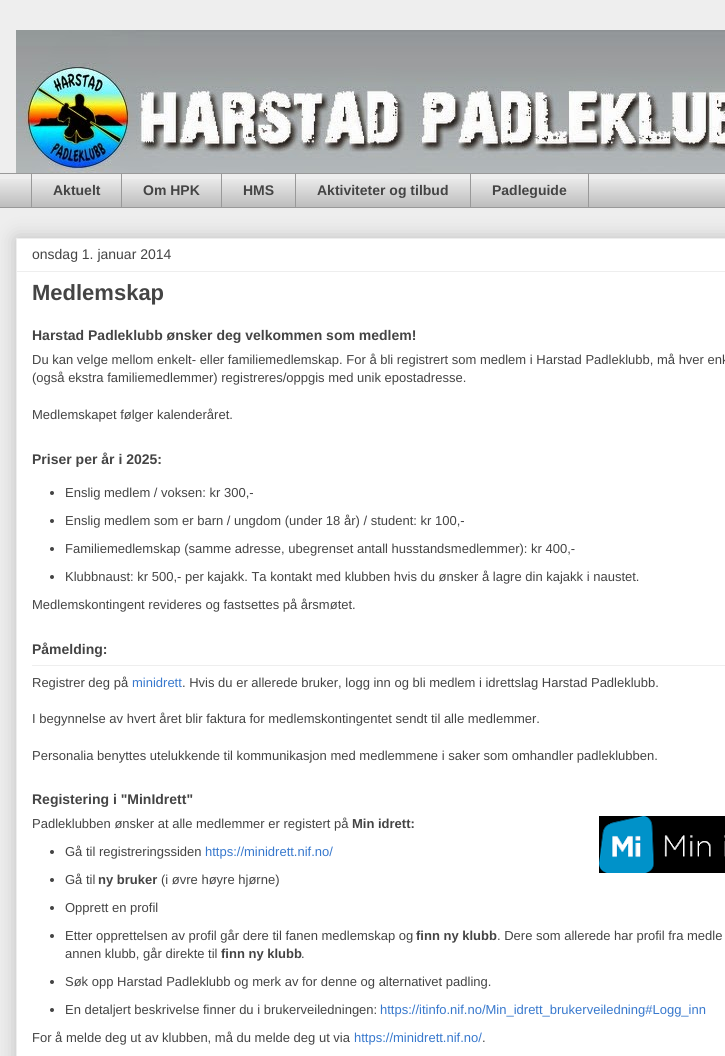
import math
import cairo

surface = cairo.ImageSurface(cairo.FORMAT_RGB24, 725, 1056)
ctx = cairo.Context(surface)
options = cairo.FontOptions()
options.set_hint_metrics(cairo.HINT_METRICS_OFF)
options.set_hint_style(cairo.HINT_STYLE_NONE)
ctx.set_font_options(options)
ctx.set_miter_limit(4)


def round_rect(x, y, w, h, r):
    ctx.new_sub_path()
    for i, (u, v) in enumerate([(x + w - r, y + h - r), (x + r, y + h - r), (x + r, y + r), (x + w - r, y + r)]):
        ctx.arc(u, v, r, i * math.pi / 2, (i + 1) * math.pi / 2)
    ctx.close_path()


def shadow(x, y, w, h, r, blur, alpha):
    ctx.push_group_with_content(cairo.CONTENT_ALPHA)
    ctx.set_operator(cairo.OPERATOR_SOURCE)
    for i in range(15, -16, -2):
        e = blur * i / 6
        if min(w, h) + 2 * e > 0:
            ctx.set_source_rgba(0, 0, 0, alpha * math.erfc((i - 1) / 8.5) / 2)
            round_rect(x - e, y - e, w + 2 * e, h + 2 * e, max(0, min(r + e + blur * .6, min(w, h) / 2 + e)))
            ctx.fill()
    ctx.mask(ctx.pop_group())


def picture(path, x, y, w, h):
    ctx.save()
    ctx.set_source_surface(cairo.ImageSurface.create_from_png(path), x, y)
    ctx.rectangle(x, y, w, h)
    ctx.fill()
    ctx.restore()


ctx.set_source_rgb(0.933, 0.933, 0.933)
ctx.paint()
picture("img1.png", 16, 30, 709, 143)
picture("img2.png", 0, 179, 725, 28)
ctx.set_source_rgb(0.6, 0.6, 0.6)
ctx.rectangle(0, 173, 725, 1)
ctx.fill()
ctx.rectangle(31, 173, 1, 35)
ctx.fill()
ctx.select_font_face("Liberation Sans", cairo.FONT_SLANT_NORMAL, cairo.FONT_WEIGHT_BOLD)
ctx.set_font_size(14)
ctx.set_source_rgb(0.267, 0.267, 0.267)
ctx.move_to(53, 195)
ctx.show_text("Aktuelt")
ctx.set_source_rgb(0.6, 0.6, 0.6)
ctx.rectangle(121, 173, 1, 35)
ctx.fill()
ctx.set_source_rgb(0.267, 0.267, 0.267)
ctx.move_to(143, 195)
ctx.show_text("Om HPK")
ctx.set_source_rgb(0.6, 0.6, 0.6)
ctx.rectangle(221, 173, 1, 35)
ctx.fill()
ctx.set_source_rgb(0.267, 0.267, 0.267)
ctx.move_to(243, 195)
ctx.show_text("HMS")
ctx.set_source_rgb(0.6, 0.6, 0.6)
ctx.rectangle(295, 173, 1, 35)
ctx.fill()
ctx.set_source_rgb(0.267, 0.267, 0.267)
ctx.move_to(317, 195)
ctx.show_text("Aktiviteter og tilbud")
ctx.rectangle(470.5, 173.5, 118, 34)
ctx.set_source_rgb(0.6, 0.6, 0.6)
ctx.set_line_width(1)
ctx.stroke()
ctx.set_source_rgb(0.267, 0.267, 0.267)
ctx.move_to(492, 195)
ctx.show_text("Padleguide")
ctx.set_source_rgb(0.6, 0.6, 0.6)
ctx.rectangle(0, 207, 725, 1)
ctx.fill()
ctx.set_source_rgb(0, 0, 0)
shadow(16, 238, 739, 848, 0, 10, 0.2)
ctx.set_source_rgb(1, 1, 1)
ctx.rectangle(16.5, 238.5, 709, 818)
ctx.fill_preserve()
ctx.set_source_rgb(0.933, 0.933, 0.933)
ctx.stroke()
ctx.select_font_face("Liberation Sans")
ctx.set_source_rgb(0.267, 0.267, 0.267)
ctx.move_to(32, 259)
ctx.show_text("onsdag 1. januar 2014")
ctx.set_source_rgb(0.933, 0.933, 0.933)
ctx.rectangle(17, 271, 708, 1)
ctx.fill()
ctx.select_font_face("Liberation Sans", cairo.FONT_SLANT_NORMAL, cairo.FONT_WEIGHT_BOLD)
ctx.set_font_size(22)
ctx.set_source_rgb(0.267, 0.267, 0.267)
ctx.move_to(32, 300)
ctx.show_text("Medlemskap")
ctx.set_font_size(14)
ctx.move_to(32, 340)
ctx.show_text("Harstad Padleklubb ønsker deg velkommen som medlem!")
ctx.select_font_face("Liberation Sans")
ctx.set_font_size(13)
ctx.move_to(32, 364)
ctx.show_text("Du kan velge mellom enkelt- eller familiemedlemskap. For å bli registrert som medlem i Harstad Padleklubb, må hver enk")
ctx.move_to(32, 382)
ctx.show_text("(også ekstra familiemedlemmer) registreres/oppgis med unik epostadresse.")
ctx.move_to(32, 419)
ctx.show_text("Medlemskapet følger kalenderåret.")
ctx.select_font_face("Liberation Sans", cairo.FONT_SLANT_NORMAL, cairo.FONT_WEIGHT_BOLD)
ctx.set_font_size(14)
ctx.move_to(32, 464)
ctx.show_text("Priser per år i 2025:")
ctx.new_path()
ctx.arc(52, 493, 2, 0, 2 * math.pi)
ctx.fill()
ctx.select_font_face("Liberation Sans")
ctx.set_font_size(13)
ctx.move_to(65, 497)
ctx.show_text("Enslig medlem / voksen: kr 300,-")
ctx.new_path()
ctx.arc(52, 521, 2, 0, 2 * math.pi)
ctx.fill()
ctx.move_to(65, 525)
ctx.show_text("Enslig medlem som er barn / ungdom (under 18 år) / student: kr 100,-")
ctx.new_path()
ctx.arc(52, 549, 2, 0, 2 * math.pi)
ctx.fill()
ctx.move_to(65, 553)
ctx.show_text("Familiemedlemskap (samme adresse, ubegrenset antall husstandsmedlemmer): kr 400,-")
ctx.new_path()
ctx.arc(52, 577, 2, 0, 2 * math.pi)
ctx.fill()
ctx.move_to(65, 581)
ctx.show_text("Klubbnaust: kr 500,- per kajakk. Ta kontakt med klubben hvis du ønsker å lagre din kajakk i naustet.")
ctx.move_to(32, 609)
ctx.show_text("Medlemskontingent revideres og fastsettes på årsmøtet.")
ctx.select_font_face("Liberation Sans", cairo.FONT_SLANT_NORMAL, cairo.FONT_WEIGHT_BOLD)
ctx.set_font_size(14)
ctx.move_to(32, 654)
ctx.show_text("Påmelding:")
ctx.set_source_rgb(0.933, 0.933, 0.933)
ctx.rectangle(32, 665, 693, 1)
ctx.fill()
ctx.select_font_face("Liberation Sans")
ctx.set_font_size(13)
ctx.set_source_rgb(0.267, 0.267, 0.267)
ctx.move_to(32, 687)
ctx.show_text("Registrer deg på")
ctx.set_source_rgb(0.216, 0.471, 0.804)
ctx.move_to(132, 687)
ctx.show_text("minidrett")
ctx.set_source_rgb(0.267, 0.267, 0.267)
ctx.move_to(182, 687)
ctx.show_text(". Hvis du er allerede bruker, logg inn og bli medlem i idrettslag Harstad Padleklubb.")
ctx.move_to(32, 723)
ctx.show_text("I begynnelse av hvert året blir faktura for medlemskontingentet sendt til alle medlemmer.")
ctx.move_to(32, 760)
ctx.show_text("Personalia benyttes utelukkende til kommunikasjon med medlemmene i saker som omhandler padleklubben.")
ctx.select_font_face("Liberation Sans", cairo.FONT_SLANT_NORMAL, cairo.FONT_WEIGHT_BOLD)
ctx.set_font_size(14)
ctx.move_to(32, 804)
ctx.show_text("Registering i \"MinIdrett\"")
picture("img3.png", 599, 816, 126, 57)
ctx.select_font_face("Liberation Sans")
ctx.set_font_size(13)
ctx.move_to(32, 828)
ctx.show_text("Padleklubben ønsker at alle medlemmer er registert på")
ctx.select_font_face("Liberation Sans", cairo.FONT_SLANT_NORMAL, cairo.FONT_WEIGHT_BOLD)
ctx.move_to(352, 828)
ctx.show_text("Min idrett:")
ctx.new_path()
ctx.arc(52, 852, 2, 0, 2 * math.pi)
ctx.fill()
ctx.select_font_face("Liberation Sans")
ctx.move_to(65, 856)
ctx.show_text("Gå til registreringssiden")
ctx.set_source_rgb(0.216, 0.471, 0.804)
ctx.move_to(205, 856)
ctx.show_text("https://minidrett.nif.no/")
ctx.set_source_rgb(0.267, 0.267, 0.267)
ctx.new_path()
ctx.arc(52, 880, 2, 0, 2 * math.pi)
ctx.fill()
ctx.move_to(65, 884)
ctx.show_text("Gå til")
ctx.select_font_face("Liberation Sans", cairo.FONT_SLANT_NORMAL, cairo.FONT_WEIGHT_BOLD)
ctx.move_to(98, 884)
ctx.show_text("ny bruker")
ctx.select_font_face("Liberation Sans")
ctx.move_to(161, 884)
ctx.show_text("(i øvre høyre hjørne)")
ctx.new_path()
ctx.arc(52, 908, 2, 0, 2 * math.pi)
ctx.fill()
ctx.move_to(65, 912)
ctx.show_text("Opprett en profil")
ctx.new_path()
ctx.arc(52, 936, 2, 0, 2 * math.pi)
ctx.fill()
ctx.move_to(65, 940)
ctx.show_text("Etter opprettelsen av profil går dere til fanen medlemskap og")
ctx.select_font_face("Liberation Sans", cairo.FONT_SLANT_NORMAL, cairo.FONT_WEIGHT_BOLD)
ctx.move_to(416, 940)
ctx.show_text("finn ny klubb")
ctx.select_font_face("Liberation Sans")
ctx.move_to(497, 940)
ctx.show_text(". Dere som allerede har profil fra medle")
ctx.move_to(65, 958)
ctx.show_text("annen klubb, går direkte til")
ctx.select_font_face("Liberation Sans", cairo.FONT_SLANT_NORMAL, cairo.FONT_WEIGHT_BOLD)
ctx.move_to(221, 958)
ctx.show_text("finn ny klubb")
ctx.select_font_face("Liberation Sans")
ctx.move_to(301, 958)
ctx.show_text(".")
ctx.new_path()
ctx.arc(52, 982, 2, 0, 2 * math.pi)
ctx.fill()
ctx.move_to(65, 986)
ctx.show_text("Søk opp Harstad Padleklubb og merk av for denne og alternativet padling.")
ctx.new_path()
ctx.arc(52, 1010, 2, 0, 2 * math.pi)
ctx.fill()
ctx.move_to(65, 1014)
ctx.show_text("En detaljert beskrivelse finner du i brukerveiledningen:")
ctx.set_source_rgb(0.216, 0.471, 0.804)
ctx.move_to(380, 1014)
ctx.show_text("https://itinfo.nif.no/Min_idrett_brukerveiledning#Logg_inn")
ctx.set_source_rgb(0.267, 0.267, 0.267)
ctx.move_to(32, 1042)
ctx.show_text("For å melde deg ut av klubben, må du melde deg ut via")
ctx.set_source_rgb(0.216, 0.471, 0.804)
ctx.move_to(354, 1042)
ctx.show_text("https://minidrett.nif.no/")
ctx.set_source_rgb(0.267, 0.267, 0.267)
ctx.move_to(482, 1042)
ctx.show_text(".")
surface.write_to_png("page.png")
